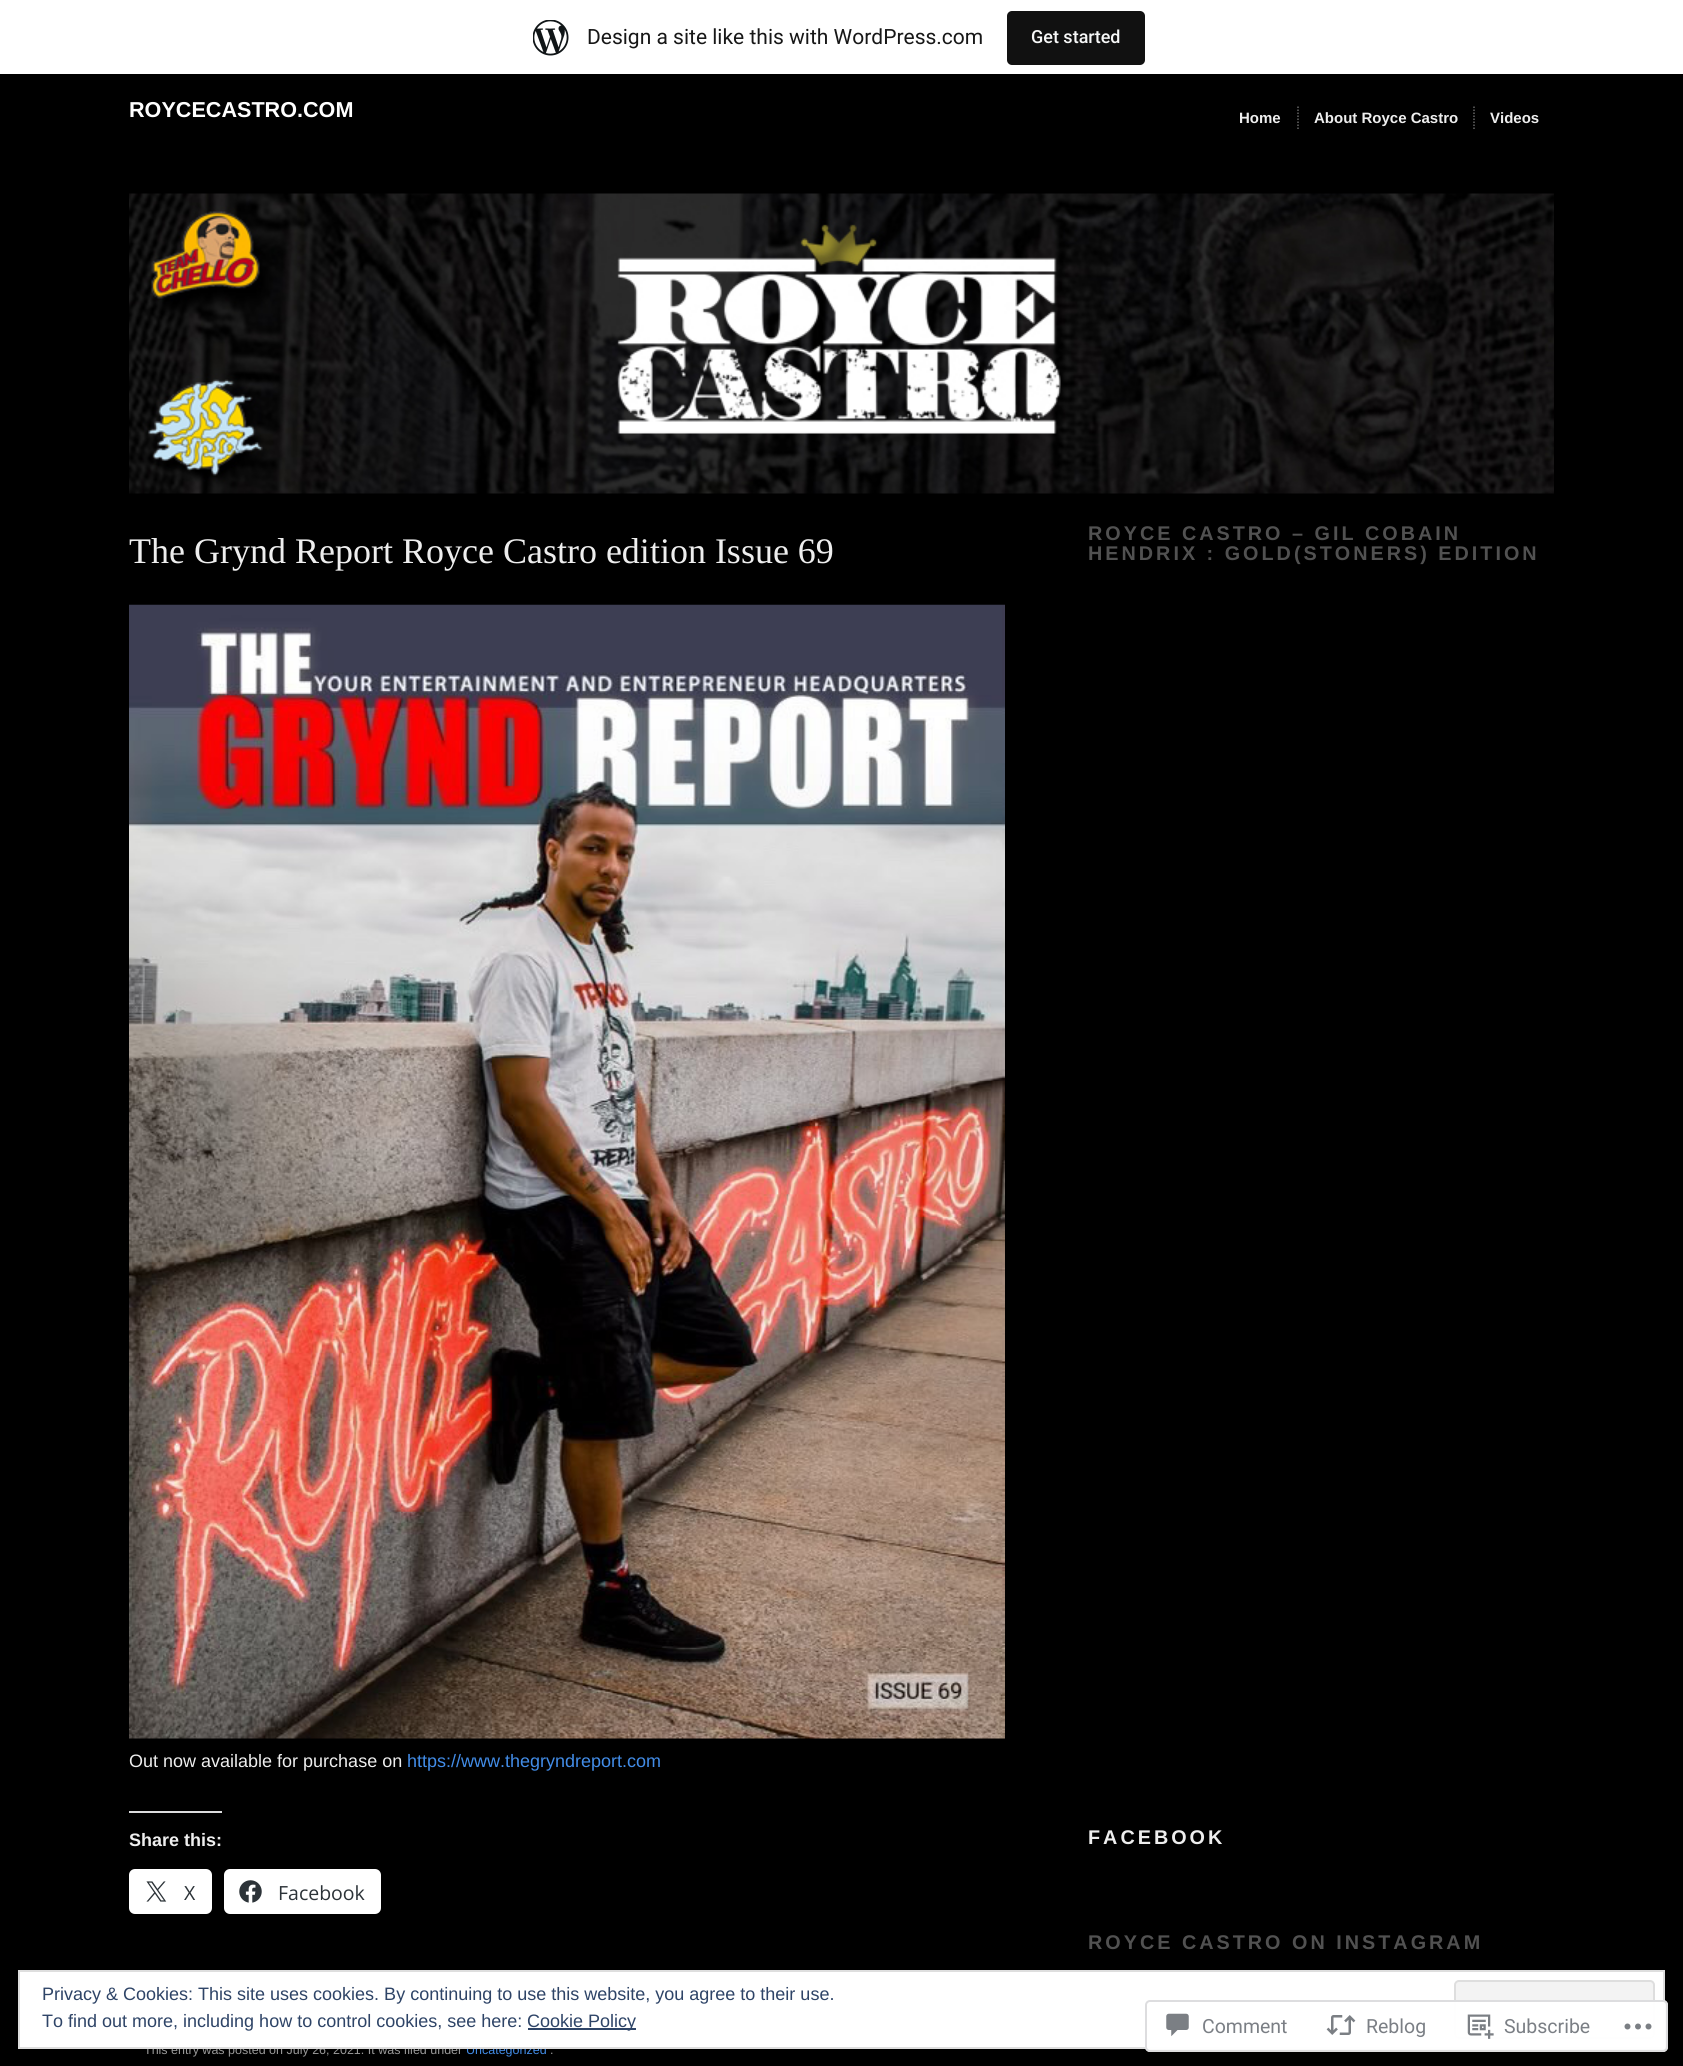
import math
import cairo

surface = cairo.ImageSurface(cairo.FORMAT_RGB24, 1683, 2066)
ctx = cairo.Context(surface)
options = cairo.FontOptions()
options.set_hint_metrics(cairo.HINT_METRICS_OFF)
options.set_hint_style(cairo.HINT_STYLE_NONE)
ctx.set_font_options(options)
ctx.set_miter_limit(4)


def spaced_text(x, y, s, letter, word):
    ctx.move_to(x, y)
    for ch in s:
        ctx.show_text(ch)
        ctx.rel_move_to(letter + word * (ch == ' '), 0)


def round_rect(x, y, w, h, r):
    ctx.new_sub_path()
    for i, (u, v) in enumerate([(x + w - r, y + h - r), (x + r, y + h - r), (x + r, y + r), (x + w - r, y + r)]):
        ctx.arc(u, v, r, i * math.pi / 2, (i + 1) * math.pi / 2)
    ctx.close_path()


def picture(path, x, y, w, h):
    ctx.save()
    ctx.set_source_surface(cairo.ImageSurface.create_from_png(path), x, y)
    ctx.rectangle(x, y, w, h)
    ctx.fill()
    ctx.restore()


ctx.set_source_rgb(0, 0, 0)
ctx.paint()
ctx.set_source_rgb(1, 1, 1)
ctx.rectangle(0, 0, 1683, 74)
ctx.fill()
picture("img1.png", 533, 20, 36, 36)
ctx.select_font_face("Roboto")
ctx.set_font_size(21)
ctx.set_source_rgb(0.09, 0.09, 0.09)
ctx.move_to(587, 44)
ctx.show_text("Design a site like this with WordPress.com")
ctx.set_source_rgb(0.067, 0.067, 0.067)
round_rect(1007, 11, 138, 54, 5)
ctx.fill()
ctx.select_font_face("Roboto Medium")
ctx.set_font_size(18)
ctx.set_source_rgb(0.965, 0.969, 0.969)
ctx.move_to(1031, 43)
ctx.show_text("Get started")
picture("img2.png", 129, 193, 1425, 301)
ctx.select_font_face("Liberation Serif")
ctx.set_font_size(36)
ctx.set_source_rgb(0.933, 0.933, 0.933)
ctx.move_to(129, 563)
ctx.show_text("The Grynd Report Royce Castro edition Issue 69")
picture("img3.png", 129, 604, 876, 1135)
ctx.select_font_face("Liberation Sans")
ctx.set_font_size(18)
ctx.move_to(129, 1767)
ctx.show_text("Out now available for purchase on")
ctx.set_source_rgb(0.259, 0.549, 0.906)
ctx.move_to(407, 1767)
ctx.show_text("https://www.thegryndreport.com")
ctx.set_source_rgb(0.863, 0.863, 0.871)
ctx.rectangle(129, 1811, 93, 2)
ctx.fill()
ctx.select_font_face("Liberation Sans", cairo.FONT_SLANT_NORMAL, cairo.FONT_WEIGHT_BOLD)
ctx.set_source_rgb(0.933, 0.933, 0.933)
ctx.move_to(129, 1846)
ctx.show_text("Share this:")
ctx.set_source_rgb(1, 1, 1)
round_rect(129, 1869, 83, 45, 6)
ctx.fill()
picture("img4.png", 146, 1881, 21, 21)
ctx.select_font_face("Open Sans")
ctx.set_font_size(19.5)
ctx.set_source_rgb(0.173, 0.2, 0.22)
ctx.move_to(184, 1900)
ctx.show_text("X")
ctx.set_source_rgb(1, 1, 1)
round_rect(224, 1869, 157, 45, 6)
ctx.fill()
picture("img5.png", 239, 1880, 23, 23)
ctx.set_source_rgb(0.173, 0.2, 0.22)
ctx.move_to(278, 1900)
ctx.show_text("Facebook")
ctx.select_font_face("Liberation Sans")
ctx.set_font_size(12.5)
ctx.set_source_rgb(0.6, 0.6, 0.6)
ctx.move_to(144, 2054)
ctx.show_text("This entry was posted on July 26, 2021. It was filed under")
ctx.set_source_rgb(0.259, 0.549, 0.906)
ctx.move_to(466, 2054)
ctx.show_text("Uncategorized")
ctx.set_source_rgb(0.6, 0.6, 0.6)
ctx.move_to(550, 2054)
ctx.show_text(".")
ctx.select_font_face("Liberation Sans", cairo.FONT_SLANT_NORMAL, cairo.FONT_WEIGHT_BOLD)
ctx.set_font_size(19.8)
ctx.set_source_rgb(0.318, 0.318, 0.318)
spaced_text(1088, 540, "ROYCE CASTRO – GIL COBAIN", 3, 0)
spaced_text(1088, 560, "HENDRIX : GOLD(STONERS) EDITION", 3, 0)
ctx.set_source_rgb(0.933, 0.933, 0.933)
spaced_text(1088, 1844, "FACEBOOK", 3, 0)
ctx.set_source_rgb(0.318, 0.318, 0.318)
spaced_text(1088, 1949, "ROYCE CASTRO ON INSTAGRAM", 3, 0)
ctx.set_source_rgb(1, 1, 1)
ctx.rectangle(19, 1971, 1645, 77)
ctx.fill_preserve()
ctx.set_source_rgb(0.871, 0.871, 0.871)
ctx.stroke()
ctx.set_source_rgb(0.953, 0.953, 0.953)
round_rect(1455, 1981, 199, 57, 4)
ctx.fill_preserve()
ctx.set_source_rgb(0.871, 0.871, 0.871)
ctx.stroke()
ctx.set_source_rgba(1, 1, 1, 0.98)
round_rect(1145, 2000, 523, 52, 5)
ctx.fill()
round_rect(1146, 2001, 521, 50, 4)
ctx.set_source_rgba(0.863, 0.863, 0.871, 0.98)
ctx.stroke()
picture("img6.png", 1166, 2013, 23, 24)
ctx.select_font_face("Roboto")
ctx.set_font_size(19.5)
ctx.set_source_rgb(0.482, 0.498, 0.522)
ctx.move_to(1202, 2033)
ctx.show_text("Comment")
picture("img7.png", 1326, 2015, 30, 20)
ctx.move_to(1366, 2033)
ctx.show_text("Reblog")
picture("img8.png", 1467, 2014, 27, 25)
ctx.move_to(1504, 2033)
ctx.show_text("Subscribe")
picture("img9.png", 1624, 2023, 28, 7)
ctx.select_font_face("Liberation Sans", cairo.FONT_SLANT_NORMAL, cairo.FONT_WEIGHT_BOLD)
ctx.set_font_size(21.6)
ctx.set_source_rgb(1, 1, 1)
ctx.move_to(129, 117)
ctx.show_text("ROYCECASTRO.COM")
ctx.new_path()
ctx.move_to(1298, 106.5)
ctx.line_to(1298, 129)
ctx.set_source_rgb(0.4, 0.4, 0.4)
ctx.set_line_width(1.5)
ctx.set_dash([1.5, 1.5])
ctx.stroke()
ctx.set_font_size(15)
ctx.set_source_rgb(0.933, 0.933, 0.933)
ctx.move_to(1239, 123)
ctx.show_text("Home")
ctx.new_path()
ctx.move_to(1474, 106.5)
ctx.line_to(1474, 129)
ctx.set_source_rgb(0.4, 0.4, 0.4)
ctx.stroke()
ctx.set_source_rgb(0.933, 0.933, 0.933)
ctx.move_to(1314, 123)
ctx.show_text("About Royce Castro")
ctx.move_to(1490, 123)
ctx.show_text("Videos")
ctx.select_font_face("Liberation Sans")
ctx.set_font_size(18)
ctx.set_source_rgb(0.18, 0.267, 0.404)
ctx.move_to(42, 2000)
ctx.show_text("Privacy & Cookies: This site uses cookies. By continuing to use this website, you agree to their use.")
ctx.move_to(42, 2027)
ctx.show_text("To find out more, including how to control cookies, see here:")
ctx.rectangle(528, 2028, 108, 2)
ctx.fill()
ctx.move_to(527, 2027)
ctx.show_text("Cookie Policy")
surface.write_to_png("page.png")
